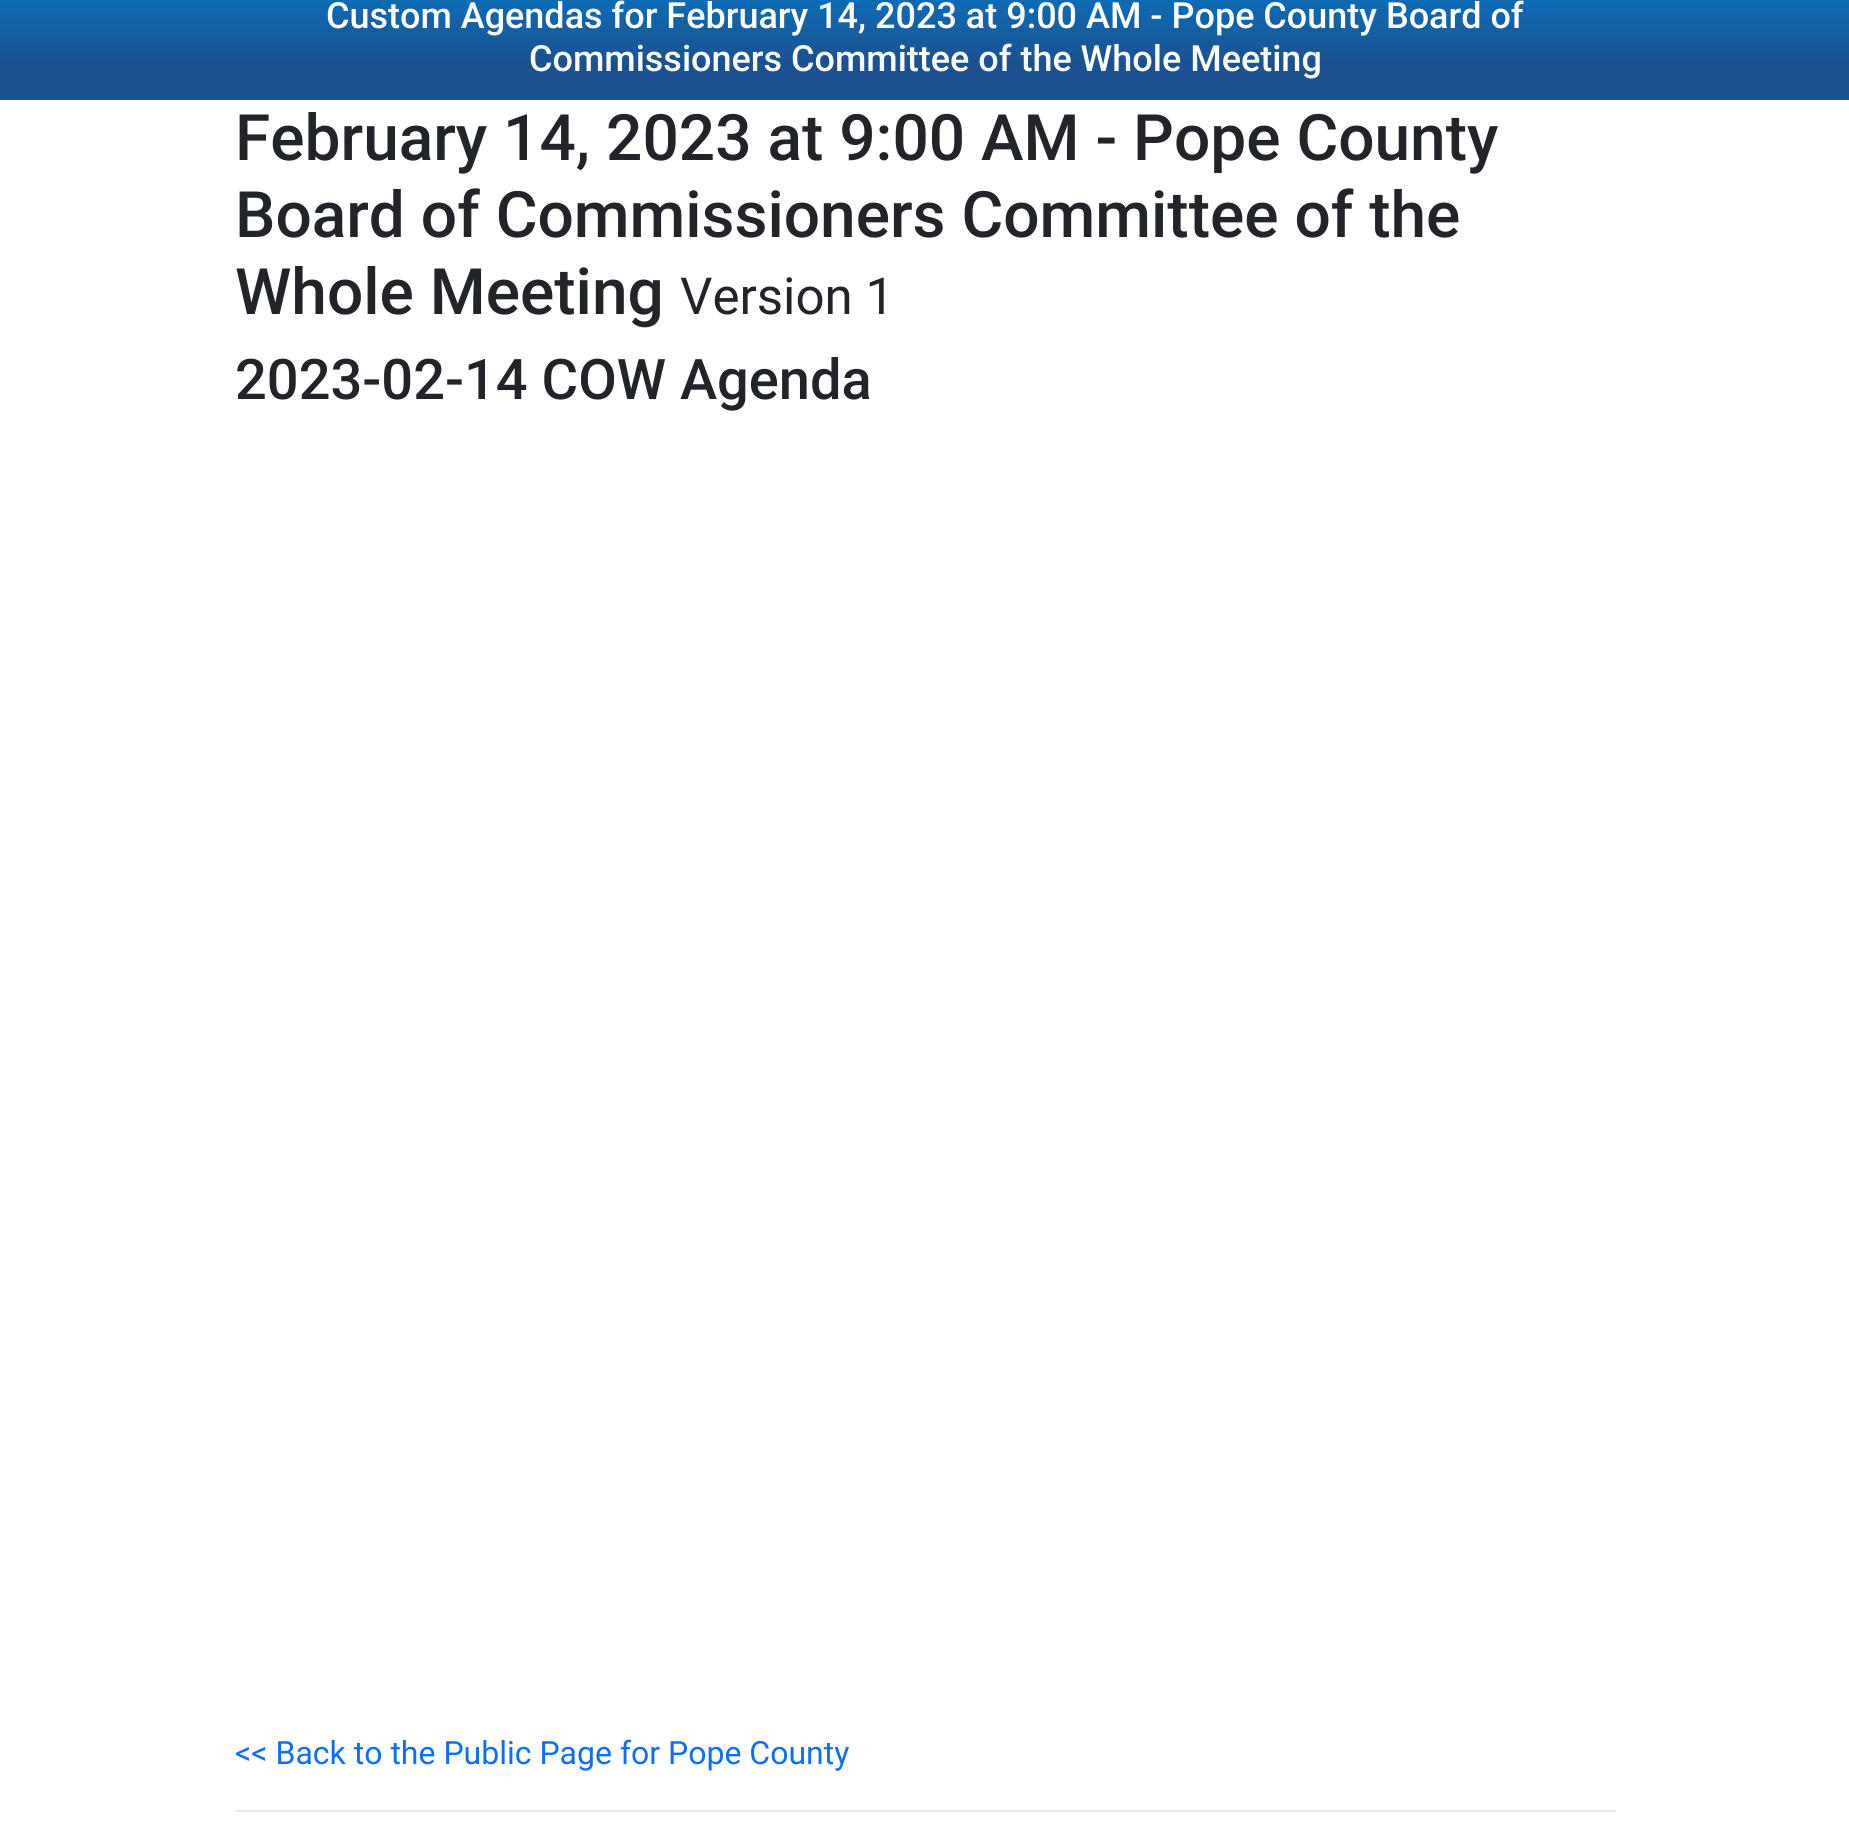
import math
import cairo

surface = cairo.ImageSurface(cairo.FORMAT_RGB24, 1849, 1841)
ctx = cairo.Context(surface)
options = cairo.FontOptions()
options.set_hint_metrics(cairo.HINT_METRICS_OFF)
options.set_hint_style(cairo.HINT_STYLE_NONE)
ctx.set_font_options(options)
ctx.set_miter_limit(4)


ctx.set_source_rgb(1, 1, 1)
ctx.paint()
gradient = cairo.LinearGradient(925, 100, 925, -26)
gradient.add_color_stop_rgba(0.29, 0.106, 0.318, 0.561, 1)
gradient.add_color_stop_rgba(0.79, 0.051, 0.42, 0.71, 1)
gradient.add_color_stop_rgba(0.95, 0.098, 0.471, 0.816, 1)
ctx.set_source(gradient)
ctx.rectangle(0, 0, 1849, 100)
ctx.fill()
ctx.select_font_face("Roboto Medium")
ctx.set_font_size(36)
ctx.set_source_rgb(1, 1, 1)
ctx.move_to(326, 28)
ctx.show_text("Custom Agendas for February 14, 2023 at 9:00 AM - Pope County Board of")
ctx.move_to(529, 71)
ctx.show_text("Commissioners Committee of the Whole Meeting")
ctx.set_font_size(64)
ctx.set_source_rgb(0.129, 0.145, 0.161)
ctx.move_to(235, 160)
ctx.show_text("February 14, 2023 at 9:00 AM - Pope County")
ctx.move_to(235, 237)
ctx.show_text("Board of Commissioners Committee of the")
ctx.move_to(235, 314)
ctx.show_text("Whole Meeting")
ctx.select_font_face("Roboto")
ctx.set_font_size(51)
ctx.move_to(680, 314)
ctx.show_text("Version 1")
ctx.select_font_face("Roboto Medium")
ctx.set_font_size(56)
ctx.move_to(235, 399)
ctx.show_text("2023-02-14 COW Agenda")
ctx.select_font_face("Roboto")
ctx.set_font_size(32)
ctx.set_source_rgb(0.051, 0.431, 0.992)
ctx.move_to(235, 1764)
ctx.show_text("<< Back to the Public Page for Pope County")
ctx.set_source_rgb(0.902, 0.902, 0.902)
ctx.rectangle(236, 1810, 1380, 2)
ctx.fill()
surface.write_to_png("page.png")
